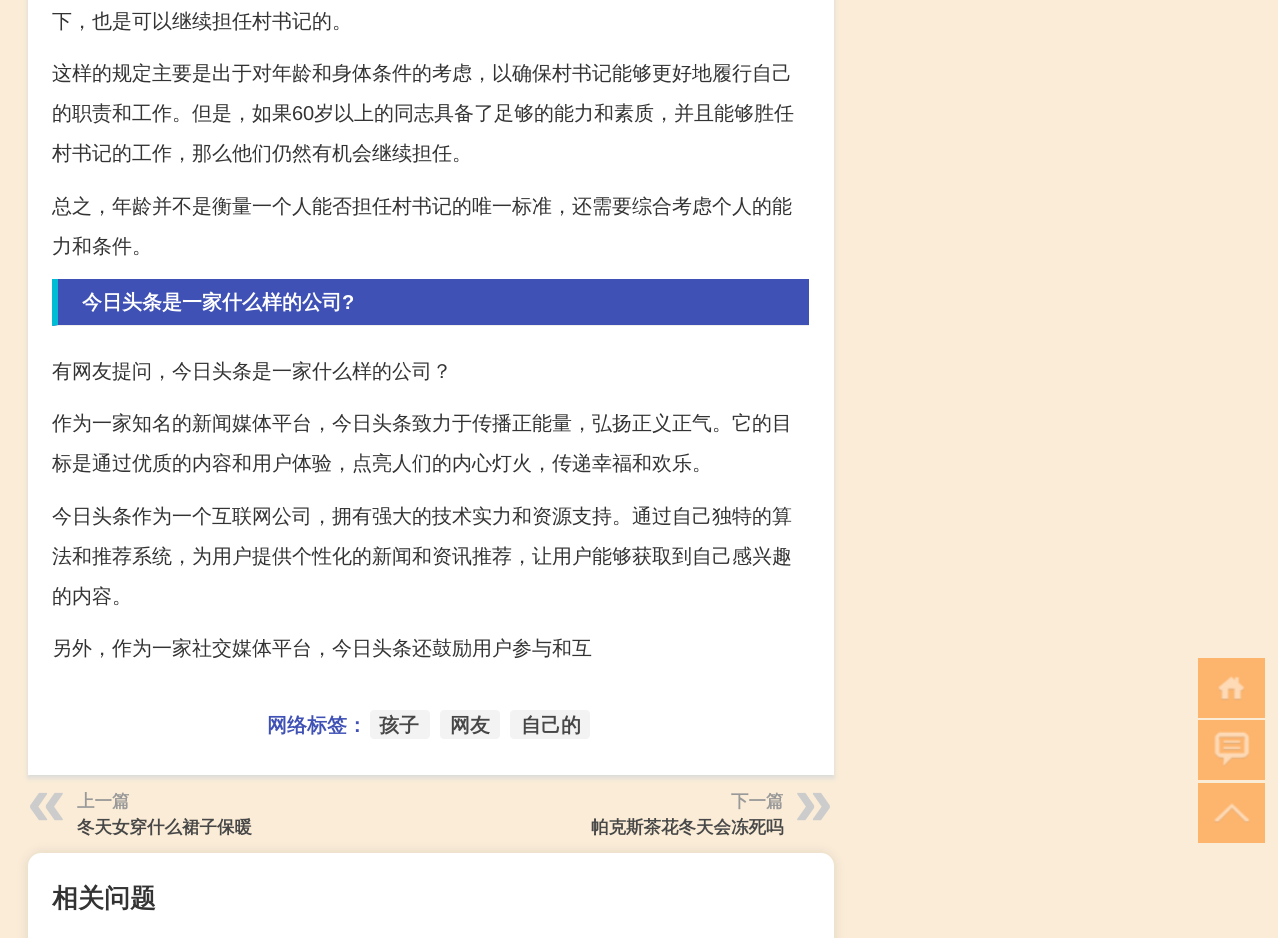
import math
import cairo

surface = cairo.ImageSurface(cairo.FORMAT_RGB24, 1278, 938)
ctx = cairo.Context(surface)
options = cairo.FontOptions()
options.set_hint_metrics(cairo.HINT_METRICS_OFF)
options.set_hint_style(cairo.HINT_STYLE_NONE)
ctx.set_font_options(options)
ctx.set_miter_limit(4)


def round_rect(x, y, w, h, r):
    ctx.new_sub_path()
    for i, (u, v) in enumerate([(x + w - r, y + h - r), (x + r, y + h - r), (x + r, y + r), (x + w - r, y + r)]):
        ctx.arc(u, v, r, i * math.pi / 2, (i + 1) * math.pi / 2)
    ctx.close_path()


def shadow(x, y, w, h, r, blur, alpha):
    ctx.push_group_with_content(cairo.CONTENT_ALPHA)
    ctx.set_operator(cairo.OPERATOR_SOURCE)
    for i in range(15, -16, -2):
        e = blur * i / 6
        if min(w, h) + 2 * e > 0:
            ctx.set_source_rgba(0, 0, 0, alpha * math.erfc((i - 1) / 8.5) / 2)
            round_rect(x - e, y - e, w + 2 * e, h + 2 * e, max(0, min(r + e + blur * .6, min(w, h) / 2 + e)))
            ctx.fill()
    ctx.mask(ctx.pop_group())


def picture(path, x, y, w, h):
    ctx.save()
    ctx.set_source_surface(cairo.ImageSurface.create_from_png(path), x, y)
    ctx.rectangle(x, y, w, h)
    ctx.fill()
    ctx.restore()


ctx.set_source_rgb(0.98, 0.922, 0.843)
ctx.paint()
ctx.set_source_rgb(0.851, 0.851, 0.851)
shadow(28, -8, 806, 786, 0, 2.5, 1)
ctx.set_source_rgb(1, 1, 1)
ctx.rectangle(28, 0, 806, 775)
ctx.fill()
ctx.select_font_face("WenQuanYi Zen Hei Medium")
ctx.set_font_size(20)
ctx.set_source_rgb(0.2, 0.2, 0.2)
ctx.move_to(52, 28)
ctx.show_text("下，也是可以继续担任村书记的。")
ctx.move_to(52, 80)
ctx.show_text("这样的规定主要是出于对年龄和身体条件的考虑，以确保村书记能够更好地履行自己")
ctx.move_to(52, 120)
ctx.show_text("的职责和工作。但是，如果")
ctx.select_font_face("Liberation Sans")
ctx.move_to(292, 120)
ctx.show_text("60")
ctx.select_font_face("WenQuanYi Zen Hei Medium")
ctx.move_to(314, 120)
ctx.show_text("岁以上的同志具备了足够的能力和素质，并且能够胜任")
ctx.move_to(52, 160)
ctx.show_text("村书记的工作，那么他们仍然有机会继续担任。")
ctx.move_to(52, 213)
ctx.show_text("总之，年龄并不是衡量一个人能否担任村书记的唯一标准，还需要综合考虑个人的能")
ctx.move_to(52, 253)
ctx.show_text("力和条件。")
ctx.set_source_rgb(0.247, 0.318, 0.71)
ctx.rectangle(53, 279, 756, 47)
ctx.fill()
ctx.set_source_rgb(0.933, 0.933, 0.933)
ctx.new_path()
ctx.move_to(809, 326)
ctx.line_to(52, 326)
ctx.line_to(58, 325)
ctx.line_to(809, 325)
ctx.close_path()
ctx.fill()
ctx.set_source_rgb(0, 0.737, 0.831)
ctx.new_path()
ctx.move_to(52, 326)
ctx.line_to(52, 279)
ctx.line_to(58, 279)
ctx.line_to(58, 325)
ctx.close_path()
ctx.fill()
ctx.select_font_face("WenQuanYi Zen Hei", cairo.FONT_SLANT_NORMAL, cairo.FONT_WEIGHT_BOLD)
ctx.set_source_rgb(1, 1, 1)
ctx.move_to(82, 309)
ctx.show_text("今日头条是一家什么样的公司")
ctx.select_font_face("Liberation Sans", cairo.FONT_SLANT_NORMAL, cairo.FONT_WEIGHT_BOLD)
ctx.move_to(342, 309)
ctx.show_text("?")
ctx.select_font_face("WenQuanYi Zen Hei Medium")
ctx.set_source_rgb(0.2, 0.2, 0.2)
ctx.move_to(52, 378)
ctx.show_text("有网友提问，今日头条是一家什么样的公司？")
ctx.move_to(52, 430)
ctx.show_text("作为一家知名的新闻媒体平台，今日头条致力于传播正能量，弘扬正义正气。它的目")
ctx.move_to(52, 470)
ctx.show_text("标是通过优质的内容和用户体验，点亮人们的内心灯火，传递幸福和欢乐。")
ctx.move_to(52, 523)
ctx.show_text("今日头条作为一个互联网公司，拥有强大的技术实力和资源支持。通过自己独特的算")
ctx.move_to(52, 563)
ctx.show_text("法和推荐系统，为用户提供个性化的新闻和资讯推荐，让用户能够获取到自己感兴趣")
ctx.move_to(52, 603)
ctx.show_text("的内容。")
ctx.move_to(52, 655)
ctx.show_text("另外，作为一家社交媒体平台，今日头条还鼓励用户参与和互")
ctx.select_font_face("WenQuanYi Zen Hei", cairo.FONT_SLANT_NORMAL, cairo.FONT_WEIGHT_BOLD)
ctx.set_source_rgb(0.247, 0.318, 0.71)
ctx.move_to(267, 732)
ctx.show_text("网络标签：")
ctx.set_source_rgb(0.953, 0.953, 0.953)
round_rect(370, 710, 60, 29, 4)
ctx.fill()
ctx.set_source_rgb(0.278, 0.278, 0.278)
ctx.move_to(379, 732)
ctx.show_text("孩子")
ctx.set_source_rgb(0.953, 0.953, 0.953)
round_rect(440, 710, 60, 29, 4)
ctx.fill()
ctx.set_source_rgb(0.278, 0.278, 0.278)
ctx.move_to(450, 732)
ctx.show_text("网友")
ctx.set_source_rgb(0.953, 0.953, 0.953)
round_rect(510, 710, 80, 29, 4)
ctx.fill()
ctx.set_source_rgb(0.278, 0.278, 0.278)
ctx.move_to(521, 732)
ctx.show_text("自己的")
ctx.select_font_face("Liberation Sans", cairo.FONT_SLANT_NORMAL, cairo.FONT_WEIGHT_BOLD)
ctx.set_font_size(70)
ctx.set_source_rgb(0.8, 0.8, 0.8)
ctx.move_to(27, 825)
ctx.show_text("«")
ctx.set_source_rgb(0, 0, 0)
shadow(28, 853, 806, 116, 13, 6, 0.1)
ctx.select_font_face("WenQuanYi Zen Hei", cairo.FONT_SLANT_NORMAL, cairo.FONT_WEIGHT_BOLD)
ctx.set_font_size(17.5)
ctx.set_source_rgb(0.278, 0.278, 0.278)
ctx.move_to(77, 833)
ctx.show_text("冬天女穿什么裙子保暖")
ctx.set_source_rgb(0.6, 0.6, 0.6)
ctx.move_to(77, 807)
ctx.show_text("上一篇")
ctx.select_font_face("Liberation Sans", cairo.FONT_SLANT_NORMAL, cairo.FONT_WEIGHT_BOLD)
ctx.set_font_size(70)
ctx.set_source_rgb(0.8, 0.8, 0.8)
ctx.move_to(794, 825)
ctx.show_text("»")
ctx.select_font_face("WenQuanYi Zen Hei", cairo.FONT_SLANT_NORMAL, cairo.FONT_WEIGHT_BOLD)
ctx.set_font_size(17.5)
ctx.set_source_rgb(0.278, 0.278, 0.278)
ctx.move_to(591, 833)
ctx.show_text("帕克斯茶花冬天会冻死吗")
ctx.set_source_rgb(0.6, 0.6, 0.6)
ctx.move_to(731, 807)
ctx.show_text("下一篇")
ctx.set_source_rgb(1, 1, 1)
round_rect(28, 853, 806, 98, 13)
ctx.fill()
ctx.set_font_size(26)
ctx.set_source_rgb(0.2, 0.2, 0.2)
ctx.move_to(52, 907)
ctx.show_text("相关问题")
ctx.set_source_rgb(0.992, 0.706, 0.424)
ctx.rectangle(1198, 658, 67, 60)
ctx.fill()
picture("img1.png", 1218, 676, 27, 25)
ctx.rectangle(1198, 720, 67, 60)
ctx.fill()
picture("img2.png", 1214, 731, 36, 36)
ctx.rectangle(1198, 783, 67, 60)
ctx.fill()
picture("img3.png", 1214, 803, 36, 20)
surface.write_to_png("page.png")
